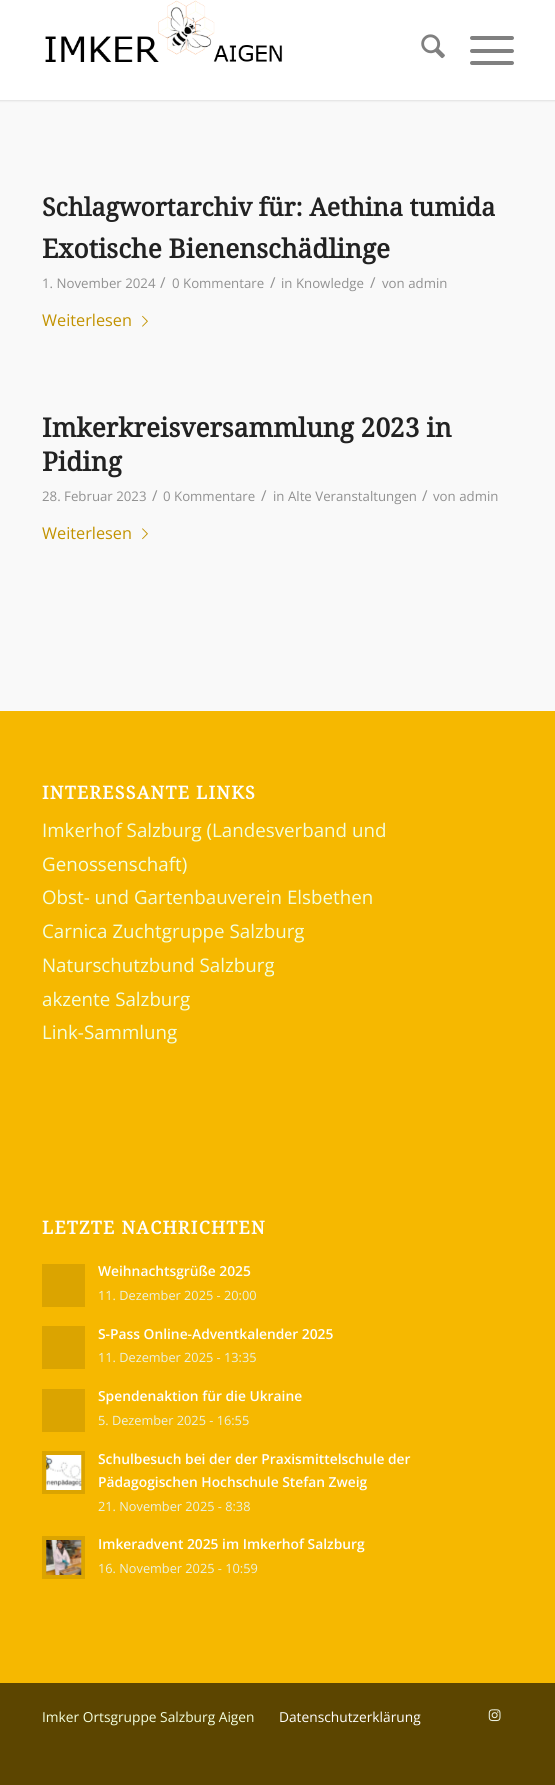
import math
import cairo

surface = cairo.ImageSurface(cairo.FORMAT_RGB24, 555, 1785)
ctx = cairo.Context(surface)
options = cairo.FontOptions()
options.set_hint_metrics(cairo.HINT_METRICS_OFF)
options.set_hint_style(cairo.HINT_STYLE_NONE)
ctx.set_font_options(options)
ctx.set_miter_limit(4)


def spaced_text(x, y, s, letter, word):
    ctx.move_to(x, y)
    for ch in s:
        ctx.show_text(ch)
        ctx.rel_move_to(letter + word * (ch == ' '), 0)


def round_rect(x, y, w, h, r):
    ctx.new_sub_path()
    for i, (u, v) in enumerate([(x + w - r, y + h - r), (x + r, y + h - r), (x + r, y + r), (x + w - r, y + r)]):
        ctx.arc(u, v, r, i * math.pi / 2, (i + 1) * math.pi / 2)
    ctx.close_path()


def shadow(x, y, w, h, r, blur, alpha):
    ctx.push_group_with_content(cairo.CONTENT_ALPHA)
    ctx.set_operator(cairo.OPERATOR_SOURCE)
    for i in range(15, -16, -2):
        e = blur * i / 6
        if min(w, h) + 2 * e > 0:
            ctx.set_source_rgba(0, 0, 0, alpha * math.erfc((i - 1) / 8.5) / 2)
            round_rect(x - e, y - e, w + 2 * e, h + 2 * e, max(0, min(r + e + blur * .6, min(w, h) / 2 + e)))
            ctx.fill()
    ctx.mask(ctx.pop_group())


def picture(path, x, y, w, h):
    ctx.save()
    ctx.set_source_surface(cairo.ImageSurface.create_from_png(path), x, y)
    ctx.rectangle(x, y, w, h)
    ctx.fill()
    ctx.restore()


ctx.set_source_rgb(0.361, 0.271, 0)
ctx.paint()
ctx.set_source_rgb(0.976, 0.976, 0.976)
ctx.rectangle(0, 100, 555, 611)
ctx.fill()
ctx.set_source_rgb(0, 0, 0)
shadow(-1, -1, 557, 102, 0, 1, 0.1)
ctx.set_source_rgb(1, 1, 1)
ctx.rectangle(0, 0, 555, 100)
ctx.fill()
picture("img1.png", 45, 0, 238, 62)
picture("img2.png", 421, 34, 24, 25)
ctx.set_source_rgb(0.502, 0.502, 0.502)
round_rect(470, 49, 44, 4, 2)
ctx.fill()
round_rect(470, 36, 44, 4, 2)
ctx.fill()
round_rect(470, 61, 44, 4, 2)
ctx.fill()
ctx.select_font_face("Droid Serif", cairo.FONT_SLANT_NORMAL, cairo.FONT_WEIGHT_BOLD)
ctx.set_font_size(25)
ctx.set_source_rgb(0.133, 0.133, 0.133)
ctx.move_to(42, 216)
ctx.show_text("Schlagwortarchiv für: Aethina tumida")
ctx.set_font_size(26.25)
ctx.move_to(42, 258)
ctx.show_text("Exotische Bienenschädlinge")
ctx.select_font_face("Open Sans")
ctx.set_font_size(13.25)
ctx.set_source_rgb(0.569, 0.569, 0.569)
ctx.move_to(42, 288)
ctx.show_text("1. November 2024")
ctx.set_font_size(15)
ctx.move_to(160, 288)
ctx.show_text("/")
ctx.set_font_size(13.25)
ctx.move_to(172, 288)
ctx.show_text("0 Kommentare")
ctx.set_font_size(15)
ctx.move_to(270, 288)
ctx.show_text("/")
ctx.set_font_size(13.25)
ctx.move_to(281, 288)
ctx.show_text("in Knowledge")
ctx.set_font_size(15)
ctx.move_to(370, 288)
ctx.show_text("/")
ctx.set_font_size(13.25)
ctx.move_to(382, 288)
ctx.show_text("von admin")
ctx.set_font_size(16.25)
ctx.set_source_rgb(0.761, 0.573, 0)
ctx.move_to(42, 326)
ctx.show_text("Weiterlesen")
picture("img3.png", 142, 315, 6, 12)
ctx.select_font_face("Droid Serif", cairo.FONT_SLANT_NORMAL, cairo.FONT_WEIGHT_BOLD)
ctx.set_font_size(26.25)
ctx.set_source_rgb(0.133, 0.133, 0.133)
ctx.move_to(42, 437)
ctx.show_text("Imkerkreisversammlung 2023 in")
ctx.move_to(42, 471)
ctx.show_text("Piding")
ctx.select_font_face("Open Sans")
ctx.set_font_size(13.25)
ctx.set_source_rgb(0.569, 0.569, 0.569)
ctx.move_to(42, 501)
ctx.show_text("28. Februar 2023")
ctx.set_font_size(15)
ctx.move_to(152, 501)
ctx.show_text("/")
ctx.set_font_size(13.25)
ctx.move_to(163, 501)
ctx.show_text("0 Kommentare")
ctx.set_font_size(15)
ctx.move_to(261, 501)
ctx.show_text("/")
ctx.set_font_size(13.25)
ctx.move_to(273, 501)
ctx.show_text("in Alte Veranstaltungen")
ctx.set_font_size(15)
ctx.move_to(422, 501)
ctx.show_text("/")
ctx.set_font_size(13.25)
ctx.move_to(433, 501)
ctx.show_text("von admin")
ctx.set_font_size(16.25)
ctx.set_source_rgb(0.761, 0.573, 0)
ctx.move_to(42, 539)
ctx.show_text("Weiterlesen")
picture("img4.png", 142, 528, 6, 12)
ctx.set_source_rgb(0.961, 0.722, 0)
ctx.rectangle(0, 711, 555, 972)
ctx.fill()
ctx.select_font_face("Droid Serif", cairo.FONT_SLANT_NORMAL, cairo.FONT_WEIGHT_BOLD)
ctx.set_font_size(17.9)
ctx.set_source_rgb(1, 1, 1)
spaced_text(42, 799, "INTERESSANTE LINKS", 1.25, 0)
ctx.select_font_face("Open Sans")
ctx.set_font_size(18.75)
ctx.set_source_rgb(0.953, 1, 0.871)
ctx.move_to(42, 837)
ctx.show_text("Imkerhof Salzburg (Landesverband und")
ctx.move_to(42, 871)
ctx.show_text("Genossenschaft)")
ctx.move_to(42, 904)
ctx.show_text("Obst- und Gartenbauverein Elsbethen")
ctx.move_to(42, 938)
ctx.show_text("Carnica Zuchtgruppe Salzburg")
ctx.move_to(42, 972)
ctx.show_text("Naturschutzbund Salzburg")
ctx.move_to(42, 1006)
ctx.show_text("akzente Salzburg")
ctx.move_to(42, 1039)
ctx.show_text("Link-Sammlung")
ctx.select_font_face("Droid Serif", cairo.FONT_SLANT_NORMAL, cairo.FONT_WEIGHT_BOLD)
ctx.set_font_size(17.9)
ctx.set_source_rgb(1, 1, 1)
spaced_text(42, 1234, "LETZTE NACHRICHTEN", 1.25, 0)
ctx.set_source_rgb(0.859, 0.643, 0)
ctx.rectangle(42, 1264, 43, 43)
ctx.fill()
ctx.select_font_face("Open Sans SemiBold")
ctx.set_font_size(13.8)
ctx.set_source_rgb(1, 1, 1)
ctx.move_to(98, 1276)
ctx.show_text("Weihnachtsgrüße 2025")
ctx.select_font_face("Open Sans")
ctx.set_font_size(12.75)
ctx.set_source_rgb(0.925, 0.949, 0.882)
ctx.move_to(98, 1300)
ctx.show_text("11. Dezember 2025 - 20:00")
ctx.set_source_rgb(0.859, 0.643, 0)
ctx.rectangle(42, 1326, 43, 43)
ctx.fill()
ctx.select_font_face("Open Sans SemiBold")
ctx.set_font_size(13.8)
ctx.set_source_rgb(1, 1, 1)
ctx.move_to(98, 1339)
ctx.show_text("S-Pass Online-Adventkalender 2025")
ctx.select_font_face("Open Sans")
ctx.set_font_size(12.75)
ctx.set_source_rgb(0.925, 0.949, 0.882)
ctx.move_to(98, 1362)
ctx.show_text("11. Dezember 2025 - 13:35")
ctx.set_source_rgb(0.859, 0.643, 0)
ctx.rectangle(42, 1389, 43, 43)
ctx.fill()
ctx.select_font_face("Open Sans SemiBold")
ctx.set_font_size(13.8)
ctx.set_source_rgb(1, 1, 1)
ctx.move_to(98, 1401)
ctx.show_text("Spendenaktion für die Ukraine")
ctx.select_font_face("Open Sans")
ctx.set_font_size(12.75)
ctx.set_source_rgb(0.925, 0.949, 0.882)
ctx.move_to(98, 1425)
ctx.show_text("5. Dezember 2025 - 16:55")
ctx.set_source_rgb(0.859, 0.643, 0)
ctx.rectangle(42, 1451, 43, 43)
ctx.fill()
picture("img5.png", 46, 1455, 36, 35)
ctx.select_font_face("Open Sans SemiBold")
ctx.set_font_size(13.8)
ctx.set_source_rgb(1, 1, 1)
ctx.move_to(98, 1464)
ctx.show_text("Schulbesuch bei der der Praxismittelschule der")
ctx.move_to(98, 1487)
ctx.show_text("Pädagogischen Hochschule Stefan Zweig")
ctx.select_font_face("Open Sans")
ctx.set_font_size(12.75)
ctx.set_source_rgb(0.925, 0.949, 0.882)
ctx.move_to(98, 1511)
ctx.show_text("21. November 2025 - 8:38")
ctx.set_source_rgb(0.859, 0.643, 0)
ctx.rectangle(42, 1536, 43, 43)
ctx.fill()
picture("img6.png", 46, 1540, 36, 35)
ctx.select_font_face("Open Sans SemiBold")
ctx.set_font_size(13.8)
ctx.set_source_rgb(1, 1, 1)
ctx.move_to(98, 1549)
ctx.show_text("Imkeradvent 2025 im Imkerhof Salzburg")
ctx.select_font_face("Open Sans")
ctx.set_font_size(12.75)
ctx.set_source_rgb(0.925, 0.949, 0.882)
ctx.move_to(98, 1573)
ctx.show_text("16. November 2025 - 10:59")
ctx.set_font_size(13.75)
ctx.set_source_rgb(0.953, 1, 0.871)
ctx.move_to(42, 1722)
ctx.show_text("Imker Ortsgruppe Salzburg Aigen")
ctx.set_source_rgb(1, 1, 1)
ctx.move_to(279, 1722)
ctx.show_text("Datenschutzerklärung")
picture("img7.png", 488, 1709, 13, 13)
surface.write_to_png("page.png")
